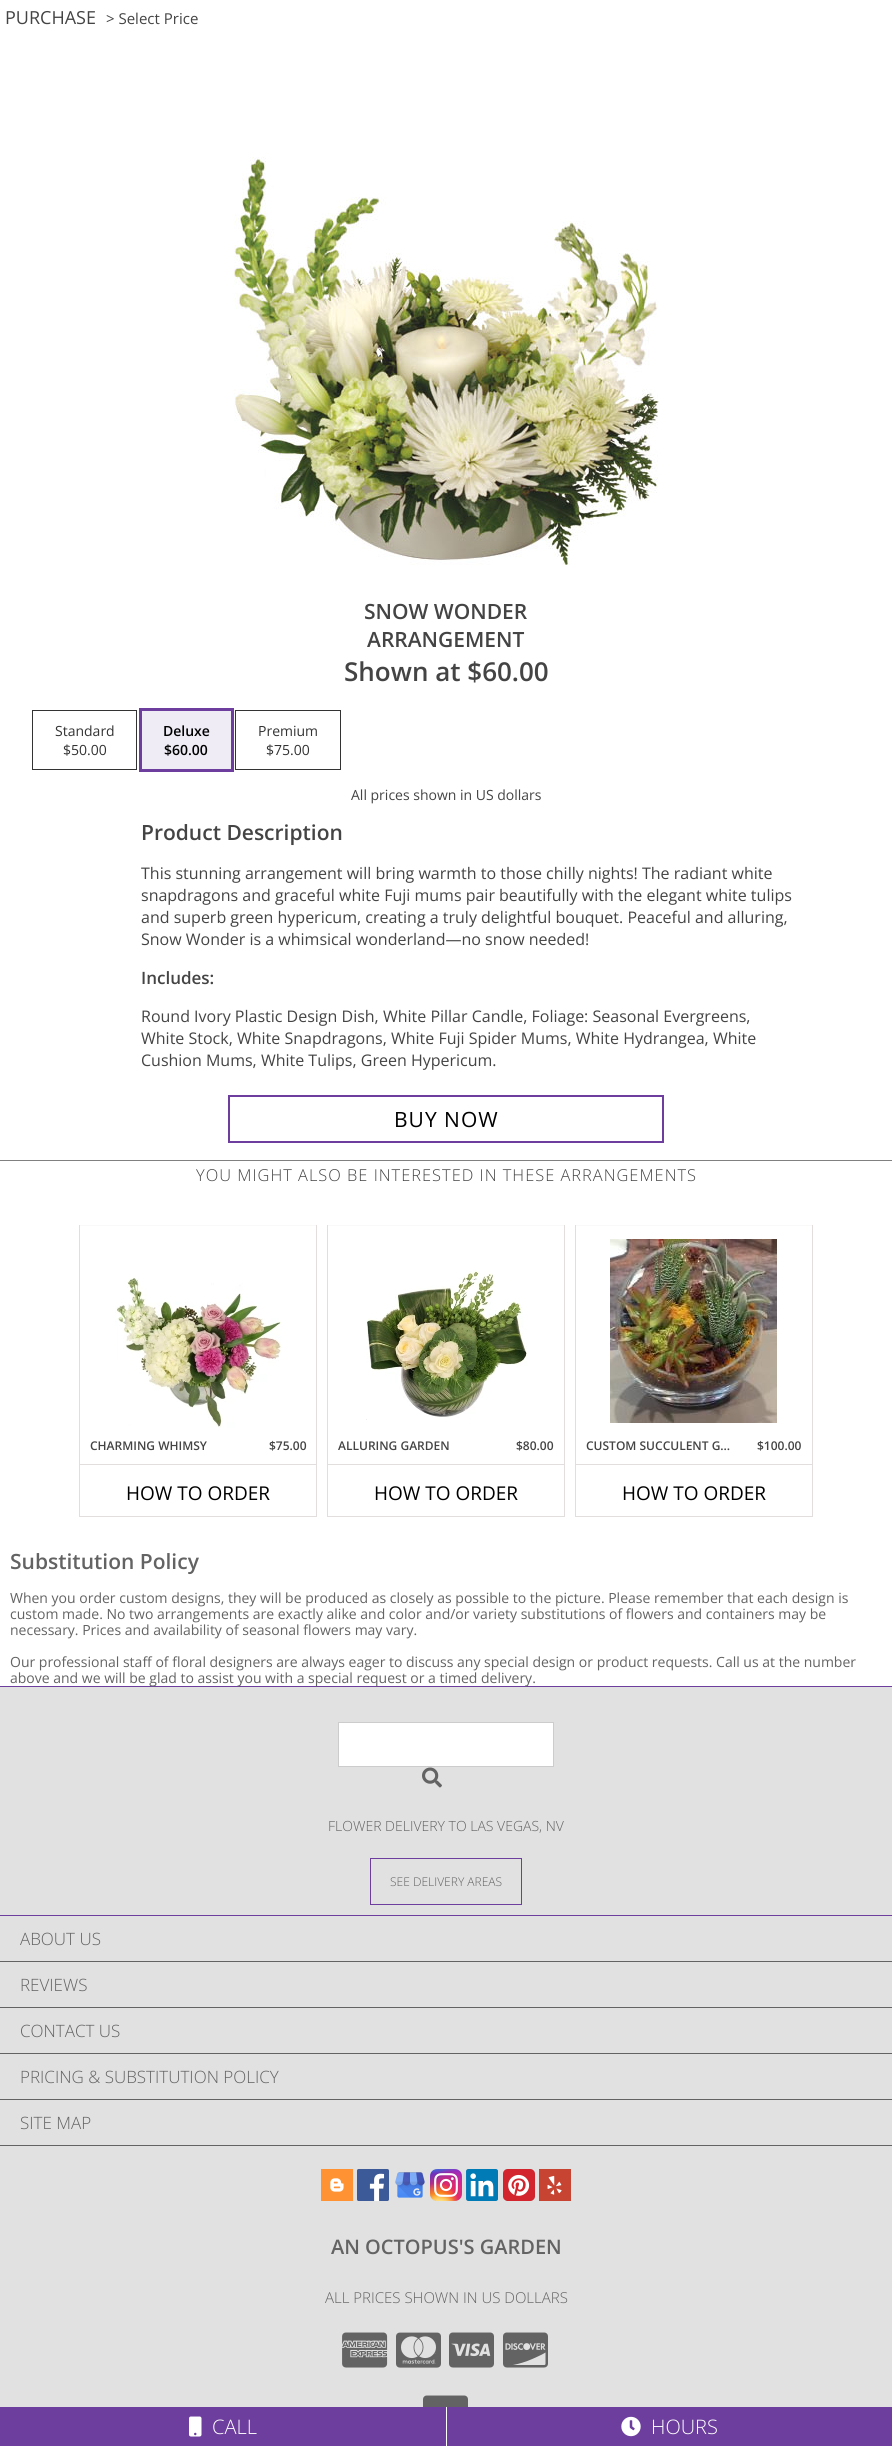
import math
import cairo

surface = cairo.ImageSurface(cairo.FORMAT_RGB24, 892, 2446)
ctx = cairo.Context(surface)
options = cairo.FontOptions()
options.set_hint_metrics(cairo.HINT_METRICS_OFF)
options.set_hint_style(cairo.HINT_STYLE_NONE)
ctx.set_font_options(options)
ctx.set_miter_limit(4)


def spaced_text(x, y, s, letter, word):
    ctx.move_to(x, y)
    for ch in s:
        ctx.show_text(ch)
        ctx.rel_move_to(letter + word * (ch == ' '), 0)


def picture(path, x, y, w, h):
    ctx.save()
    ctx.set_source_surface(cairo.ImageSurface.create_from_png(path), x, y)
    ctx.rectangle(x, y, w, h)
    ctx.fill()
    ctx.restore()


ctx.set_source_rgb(1, 1, 1)
ctx.paint()
ctx.select_font_face("Open Sans")
ctx.set_font_size(18)
ctx.set_source_rgb(0.267, 0.267, 0.267)
ctx.move_to(5, 24)
ctx.show_text("PURCHASE")
ctx.set_font_size(15)
ctx.move_to(106, 24)
ctx.show_text("> Select Price")
picture("img1.png", 234, 157, 425, 408)
ctx.select_font_face("Open Sans SemiBold")
ctx.set_font_size(21)
ctx.move_to(364, 619)
ctx.show_text("SNOW WONDER")
ctx.move_to(367, 647)
ctx.show_text("ARRANGEMENT")
ctx.set_font_size(26)
ctx.move_to(344, 681)
ctx.show_text("Shown at $60.00")
ctx.rectangle(32.5, 710.5, 104, 59)
ctx.set_source_rgb(0.2, 0.2, 0.2)
ctx.set_line_width(1)
ctx.stroke()
ctx.select_font_face("Open Sans")
ctx.set_font_size(14)
ctx.move_to(55, 736)
ctx.show_text("Standard")
ctx.move_to(63, 755)
ctx.show_text("$50.00")
ctx.rectangle(140.5, 709.5, 92, 61)
ctx.set_source_rgb(0.427, 0.243, 0.62)
ctx.set_line_width(3)
ctx.stroke()
ctx.set_source_rgb(0.941, 0.922, 0.961)
ctx.rectangle(142, 711, 89, 58)
ctx.fill()
ctx.select_font_face("Open Sans SemiBold")
ctx.set_source_rgb(0, 0, 0)
ctx.move_to(163, 736)
ctx.show_text("Deluxe")
ctx.move_to(164, 755)
ctx.show_text("$60.00")
ctx.rectangle(235.5, 710.5, 105, 59)
ctx.set_source_rgb(0.2, 0.2, 0.2)
ctx.set_line_width(1)
ctx.stroke()
ctx.select_font_face("Open Sans")
ctx.move_to(258, 736)
ctx.show_text("Premium")
ctx.move_to(266, 755)
ctx.show_text("$75.00")
ctx.set_source_rgb(0.267, 0.267, 0.267)
ctx.move_to(351, 800)
ctx.show_text("All prices shown in US dollars")
ctx.select_font_face("Open Sans SemiBold")
ctx.set_font_size(21)
ctx.move_to(141, 840)
ctx.show_text("Product Description")
ctx.select_font_face("Open Sans")
ctx.set_font_size(16)
ctx.move_to(141, 879)
ctx.show_text("This stunning arrangement will bring warmth to those chilly nights! The radiant white")
ctx.move_to(141, 901)
ctx.show_text("snapdragons and graceful white Fuji mums pair beautifully with the elegant white tulips")
ctx.move_to(141, 923)
ctx.show_text("and superb green hypericum, creating a truly delightful bouquet. Peaceful and alluring,")
ctx.move_to(141, 945)
ctx.show_text("Snow Wonder is a whimsical wonderland—no snow needed!")
ctx.select_font_face("Open Sans SemiBold")
ctx.set_font_size(17)
ctx.move_to(141, 984)
ctx.show_text("Includes:")
ctx.select_font_face("Open Sans")
ctx.set_font_size(16)
ctx.move_to(141, 1022)
ctx.show_text("Round Ivory Plastic Design Dish, White Pillar Candle, Foliage: Seasonal Evergreens,")
ctx.move_to(141, 1044)
ctx.show_text("White Stock, White Snapdragons, White Fuji Spider Mums, White Hydrangea, White")
ctx.move_to(141, 1066)
ctx.show_text("Cushion Mums, White Tulips, Green Hypericum.")
ctx.rectangle(229, 1096, 434, 46)
ctx.set_source_rgb(0.427, 0.243, 0.62)
ctx.set_line_width(2)
ctx.stroke()
ctx.set_font_size(21)
ctx.set_source_rgb(0, 0, 0)
spaced_text(394, 1127, "BUY NOW", 1, 0)
ctx.set_source_rgb(0.502, 0.502, 0.502)
ctx.rectangle(0, 1160, 892, 1)
ctx.fill()
ctx.select_font_face("Open Sans Light")
ctx.set_font_size(16.4)
ctx.set_source_rgb(0.267, 0.267, 0.267)
spaced_text(196, 1181, "YOU MIGHT ALSO BE INTERESTED IN THESE ARRANGEMENTS", 1, 0)
ctx.set_source_rgb(0.976, 0.976, 0.976)
ctx.rectangle(79, 1225, 238, 1)
ctx.fill()
ctx.set_source_rgb(0.886, 0.871, 0.867)
ctx.rectangle(316, 1225, 1, 292)
ctx.fill()
ctx.rectangle(79, 1516, 238, 1)
ctx.fill()
ctx.rectangle(79, 1225, 1, 292)
ctx.fill()
picture("img2.png", 115, 1277, 167, 151)
ctx.select_font_face("Open Sans SemiBold")
ctx.set_font_size(12)
ctx.set_source_rgb(0.267, 0.267, 0.267)
ctx.move_to(90, 1450)
ctx.show_text("CHARMING WHIMSY")
ctx.move_to(269, 1450)
ctx.show_text("$75.00")
ctx.set_source_rgb(0.886, 0.871, 0.867)
ctx.rectangle(80, 1464, 236, 1)
ctx.fill()
ctx.select_font_face("Open Sans")
ctx.set_font_size(19)
ctx.set_source_rgb(0, 0, 0)
ctx.move_to(126, 1500)
ctx.show_text("HOW TO ORDER")
ctx.set_source_rgb(0.976, 0.976, 0.976)
ctx.rectangle(327, 1225, 238, 1)
ctx.fill()
ctx.set_source_rgb(0.886, 0.871, 0.867)
ctx.rectangle(564, 1225, 1, 292)
ctx.fill()
ctx.rectangle(327, 1516, 238, 1)
ctx.fill()
ctx.rectangle(327, 1225, 1, 292)
ctx.fill()
picture("img3.png", 366, 1270, 161, 150)
ctx.select_font_face("Open Sans SemiBold")
ctx.set_font_size(12)
ctx.set_source_rgb(0.267, 0.267, 0.267)
ctx.move_to(338, 1450)
ctx.show_text("ALLURING GARDEN")
ctx.move_to(516, 1450)
ctx.show_text("$80.00")
ctx.set_source_rgb(0.886, 0.871, 0.867)
ctx.rectangle(328, 1464, 236, 1)
ctx.fill()
ctx.select_font_face("Open Sans")
ctx.set_font_size(19)
ctx.set_source_rgb(0, 0, 0)
ctx.move_to(374, 1500)
ctx.show_text("HOW TO ORDER")
ctx.set_source_rgb(0.976, 0.976, 0.976)
ctx.rectangle(575, 1225, 238, 1)
ctx.fill()
ctx.set_source_rgb(0.886, 0.871, 0.867)
ctx.rectangle(812, 1225, 1, 292)
ctx.fill()
ctx.rectangle(575, 1516, 238, 1)
ctx.fill()
ctx.rectangle(575, 1225, 1, 292)
ctx.fill()
picture("img4.png", 610, 1239, 167, 184)
ctx.select_font_face("Open Sans SemiBold")
ctx.set_font_size(12)
ctx.set_source_rgb(0.267, 0.267, 0.267)
ctx.move_to(586, 1450)
ctx.show_text("CUSTOM SUCCULENT G…")
ctx.move_to(757, 1450)
ctx.show_text("$100.00")
ctx.set_source_rgb(0.886, 0.871, 0.867)
ctx.rectangle(576, 1464, 236, 1)
ctx.fill()
ctx.select_font_face("Open Sans")
ctx.set_font_size(19)
ctx.set_source_rgb(0, 0, 0)
ctx.move_to(622, 1500)
ctx.show_text("HOW TO ORDER")
ctx.select_font_face("Open Sans SemiBold")
ctx.set_font_size(21)
ctx.set_source_rgb(0.388, 0.388, 0.388)
ctx.move_to(10, 1569)
ctx.show_text("Substitution Policy")
ctx.select_font_face("Open Sans")
ctx.set_font_size(14)
ctx.move_to(10, 1603)
ctx.show_text("When you order custom designs, they will be produced as closely as possible to the picture. Please remember that each design is")
ctx.move_to(10, 1619)
ctx.show_text("custom made. No two arrangements are exactly alike and color and/or variety substitutions of flowers and containers may be")
ctx.move_to(10, 1635)
ctx.show_text("necessary. Prices and availability of seasonal flowers may vary.")
ctx.move_to(10, 1667)
ctx.show_text("Our professional staff of floral designers are always eager to discuss any special design or product requests. Call us at the number")
ctx.set_source_rgb(0.427, 0.243, 0.62)
ctx.rectangle(0, 1686, 892, 1)
ctx.fill()
ctx.set_source_rgb(0.388, 0.388, 0.388)
ctx.move_to(10, 1683)
ctx.show_text("above and we will be glad to assist you with a special request or a timed delivery.")
ctx.set_source_rgb(0.882, 0.882, 0.882)
ctx.rectangle(0, 1687, 892, 228)
ctx.fill()
ctx.set_source_rgb(0.427, 0.243, 0.62)
ctx.rectangle(0, 1915, 892, 1)
ctx.fill()
ctx.set_source_rgb(1, 1, 1)
ctx.rectangle(338.5, 1722.5, 215, 44)
ctx.fill_preserve()
ctx.set_source_rgb(0.8, 0.8, 0.8)
ctx.set_line_width(1)
ctx.stroke()
picture("img5.png", 422, 1767, 20, 21)
ctx.select_font_face("Open Sans Light")
ctx.set_source_rgb(0.388, 0.388, 0.388)
ctx.move_to(328, 1831)
ctx.show_text("FLOWER DELIVERY TO LAS VEGAS, NV")
ctx.rectangle(370.5, 1858.5, 151, 46)
ctx.set_source_rgb(0.427, 0.243, 0.62)
ctx.stroke()
ctx.set_font_size(12)
ctx.set_source_rgb(0.388, 0.388, 0.388)
ctx.move_to(390, 1886)
ctx.show_text("SEE DELIVERY AREAS")
ctx.set_source_rgb(0.882, 0.882, 0.882)
ctx.rectangle(0, 1916, 892, 491)
ctx.fill()
ctx.set_source_rgb(0.388, 0.388, 0.388)
ctx.rectangle(0, 1961, 892, 1)
ctx.fill()
ctx.set_font_size(17)
ctx.move_to(20, 1945)
ctx.show_text("ABOUT US")
ctx.rectangle(0, 2007, 892, 1)
ctx.fill()
ctx.move_to(20, 1991)
ctx.show_text("REVIEWS")
ctx.rectangle(0, 2053, 892, 1)
ctx.fill()
ctx.move_to(20, 2037)
ctx.show_text("CONTACT US")
ctx.rectangle(0, 2099, 892, 1)
ctx.fill()
ctx.move_to(20, 2083)
ctx.show_text("PRICING & SUBSTITUTION POLICY")
ctx.rectangle(0, 2145, 892, 1)
ctx.fill()
ctx.move_to(20, 2129)
ctx.show_text("SITE MAP")
picture("img6.png", 321, 2169, 32, 32)
picture("img7.png", 357, 2169, 32, 32)
picture("img8.png", 395, 2172, 30, 26)
picture("img9.png", 430, 2169, 32, 32)
picture("img10.png", 466, 2169, 32, 32)
picture("img11.png", 503, 2169, 32, 32)
picture("img12.png", 539, 2169, 32, 32)
ctx.select_font_face("Open Sans SemiBold")
ctx.set_font_size(20)
ctx.move_to(331, 2254)
ctx.show_text("AN OCTOPUS'S GARDEN")
ctx.select_font_face("Open Sans Light")
ctx.set_font_size(15)
ctx.move_to(325, 2303)
ctx.show_text("ALL PRICES SHOWN IN US DOLLARS")
picture("img13.png", 342, 2332, 46, 36)
picture("img14.png", 396, 2332, 45, 36)
picture("img15.png", 449, 2332, 45, 36)
picture("img16.png", 503, 2332, 45, 36)
picture("img17.png", 423, 2395, 45, 12)
ctx.set_source_rgb(0.427, 0.243, 0.62)
ctx.rectangle(0, 2407, 446, 39)
ctx.fill()
picture("img18.png", 189, 2416, 13, 21)
ctx.set_font_size(20)
ctx.set_source_rgb(1, 1, 1)
ctx.move_to(212, 2434)
ctx.show_text("CALL")
ctx.set_source_rgb(0.427, 0.243, 0.62)
ctx.rectangle(447, 2407, 445, 39)
ctx.fill()
picture("img19.png", 621, 2416, 20, 21)
ctx.set_source_rgb(1, 1, 1)
ctx.move_to(651, 2434)
ctx.show_text("HOURS")
surface.write_to_png("page.png")
